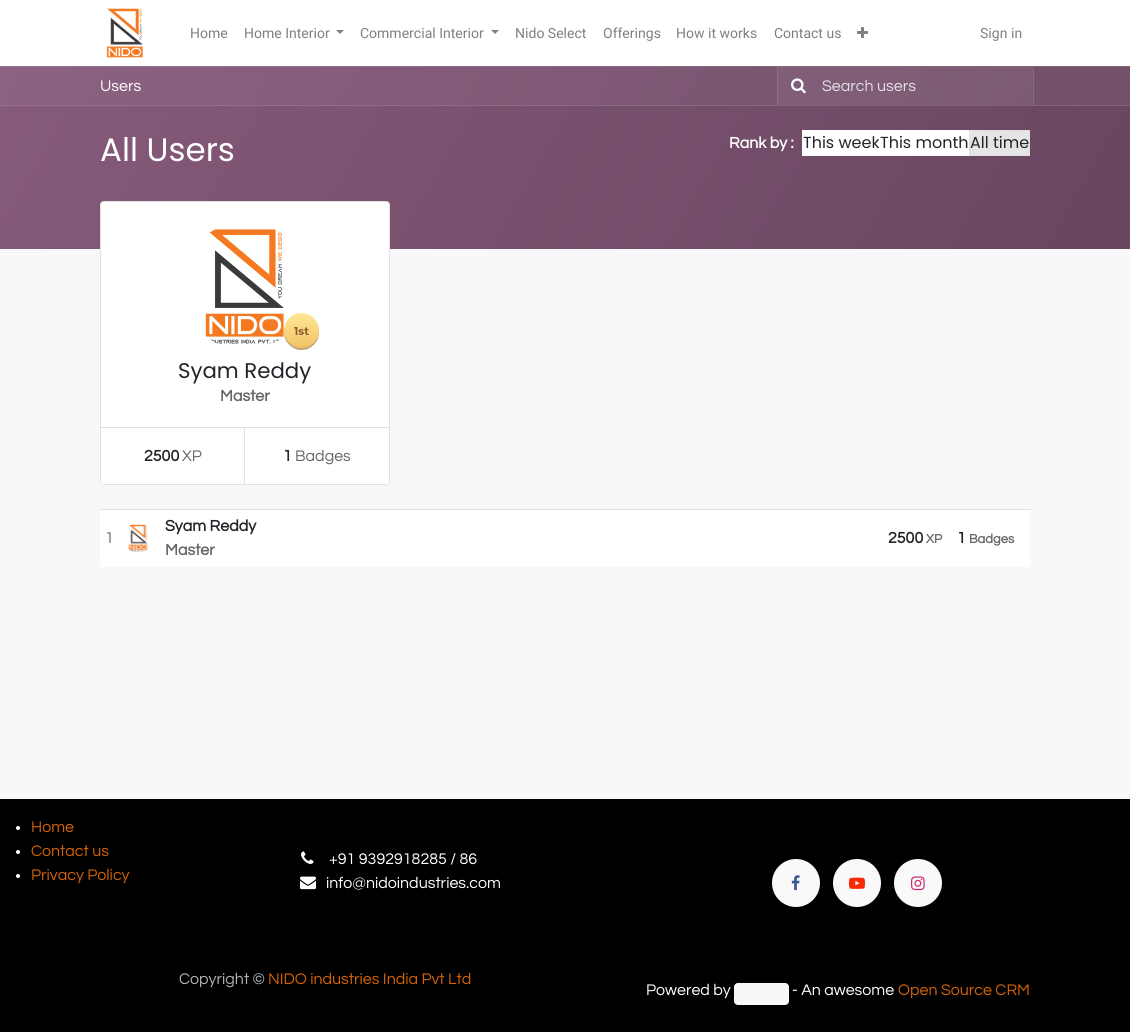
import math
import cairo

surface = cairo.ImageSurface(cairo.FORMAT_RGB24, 1130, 1032)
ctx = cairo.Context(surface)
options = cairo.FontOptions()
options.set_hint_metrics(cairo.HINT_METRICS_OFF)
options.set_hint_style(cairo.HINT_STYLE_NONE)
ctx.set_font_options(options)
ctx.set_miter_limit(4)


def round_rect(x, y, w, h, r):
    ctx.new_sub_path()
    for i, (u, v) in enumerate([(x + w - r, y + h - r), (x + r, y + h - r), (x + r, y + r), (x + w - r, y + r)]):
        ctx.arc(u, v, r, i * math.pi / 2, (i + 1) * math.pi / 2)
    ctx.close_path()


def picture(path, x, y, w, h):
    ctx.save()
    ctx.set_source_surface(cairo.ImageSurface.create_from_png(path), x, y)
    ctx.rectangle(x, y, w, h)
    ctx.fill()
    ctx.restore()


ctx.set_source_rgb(0.969, 0.969, 0.98)
ctx.paint()
ctx.set_source_rgb(1, 1, 1)
ctx.rectangle(0, 0, 1130, 66)
ctx.fill()
picture("img1.png", 106, 8, 37, 50)
ctx.select_font_face("Heebo")
ctx.set_font_size(14)
ctx.set_source_rgb(0.502, 0.502, 0.502)
ctx.move_to(190, 38)
ctx.show_text("Home")
ctx.move_to(244, 38)
ctx.show_text("Home Interior")
ctx.new_path()
ctx.move_to(336, 30)
ctx.line_to(344, 30)
ctx.line_to(340, 34)
ctx.close_path()
ctx.fill()
ctx.move_to(360, 38)
ctx.show_text("Commercial Interior")
ctx.new_path()
ctx.move_to(491, 30)
ctx.line_to(499, 30)
ctx.line_to(495, 34)
ctx.close_path()
ctx.fill()
ctx.move_to(515, 38)
ctx.show_text("Nido Select")
ctx.move_to(603, 38)
ctx.show_text("Offerings")
ctx.move_to(676, 38)
ctx.show_text("How it works")
ctx.move_to(774, 38)
ctx.show_text("Contact us")
picture("img2.png", 857, 27, 11, 11)
ctx.move_to(980, 38)
ctx.show_text("Sign in")
gradient = cairo.LinearGradient(102, -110, 1028, 425)
gradient.add_color_stop_rgba(0, 0.529, 0.353, 0.482, 1)
gradient.add_color_stop_rgba(1, 0.408, 0.275, 0.373, 1)
ctx.set_source(gradient)
ctx.rectangle(0, 106, 1130, 143)
ctx.fill()
gradient = cairo.LinearGradient(102, -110, 1028, 425)
gradient.add_color_stop_rgba(0, 0.553, 0.384, 0.51, 1)
gradient.add_color_stop_rgba(1, 0.439, 0.31, 0.404, 1)
ctx.set_source(gradient)
ctx.rectangle(0, 67, 1130, 38)
ctx.fill()
gradient = cairo.LinearGradient(102, -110, 1028, 425)
gradient.add_color_stop_rgba(0, 0.576, 0.416, 0.533, 1)
gradient.add_color_stop_rgba(1, 0.467, 0.345, 0.435, 1)
ctx.set_source(gradient)
ctx.rectangle(778, 67, 255, 38)
ctx.fill()
gradient = cairo.LinearGradient(102, -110, 1028, 425)
gradient.add_color_stop_rgba(0, 0.596, 0.447, 0.561, 1)
gradient.add_color_stop_rgba(1, 0.494, 0.38, 0.463, 1)
ctx.set_source(gradient)
ctx.rectangle(0, 105, 1130, 1)
ctx.fill()
ctx.rectangle(0, 66, 1130, 1)
ctx.fill()
ctx.select_font_face("Questrial")
ctx.set_font_size(16)
ctx.set_source_rgb(1, 1, 1)
ctx.move_to(100, 91)
ctx.show_text("Users")
ctx.set_source_rgb(0.533, 0.42, 0.502)
ctx.rectangle(1033, 67, 1, 38)
ctx.fill()
ctx.set_source_rgb(0.553, 0.431, 0.522)
ctx.rectangle(777, 67, 1, 38)
ctx.fill()
picture("img3.png", 791, 78, 15, 16)
ctx.set_source_rgb(0.898, 0.875, 0.894)
ctx.move_to(822, 91)
ctx.show_text("Search users")
ctx.select_font_face("Poppins")
ctx.set_font_size(32.5)
ctx.set_source_rgb(1, 1, 1)
ctx.move_to(100, 161)
ctx.show_text("All Users")
ctx.select_font_face("Questrial", cairo.FONT_SLANT_NORMAL, cairo.FONT_WEIGHT_BOLD)
ctx.set_font_size(16)
ctx.move_to(729, 148)
ctx.show_text("Rank by :")
ctx.rectangle(802, 130, 77, 26)
ctx.fill()
ctx.select_font_face("Poppins")
ctx.set_source_rgb(0.129, 0.145, 0.161)
ctx.move_to(803, 148)
ctx.show_text("This week")
ctx.set_source_rgb(1, 1, 1)
ctx.rectangle(879, 130, 90, 26)
ctx.fill()
ctx.set_source_rgb(0.129, 0.145, 0.161)
ctx.move_to(880, 148)
ctx.show_text("This month")
ctx.set_source_rgb(0.902, 0.898, 0.898)
ctx.rectangle(969.5, 130.5, 60, 25)
ctx.fill_preserve()
ctx.set_source_rgb(0.875, 0.875, 0.875)
ctx.set_line_width(1)
ctx.stroke()
ctx.set_source_rgb(0.129, 0.145, 0.161)
ctx.move_to(970, 148)
ctx.show_text("All time")
ctx.set_source_rgb(1, 1, 1)
round_rect(100, 201, 290, 284, 4)
ctx.fill()
ctx.set_source_rgba(0, 0, 0, 0.12)
ctx.set_fill_rule(cairo.FILL_RULE_EVEN_ODD)
ctx.new_path()
ctx.move_to(104, 201)
ctx.line_to(386, 201)
ctx.curve_to(388, 201, 390, 203, 390, 205)
ctx.line_to(390, 481)
ctx.curve_to(390, 483, 388, 485, 386, 485)
ctx.line_to(104, 485)
ctx.curve_to(102, 485, 100, 483, 100, 481)
ctx.line_to(100, 205)
ctx.curve_to(100, 203, 102, 201, 104, 201)
ctx.close_path()
ctx.move_to(104, 202)
ctx.line_to(386, 202)
ctx.curve_to(388, 202, 389, 203, 389, 205)
ctx.line_to(389, 481)
ctx.curve_to(389, 483, 388, 485, 386, 485)
ctx.line_to(104, 485)
ctx.curve_to(102, 485, 101, 483, 101, 481)
ctx.line_to(101, 205)
ctx.curve_to(101, 203, 102, 202, 104, 202)
ctx.close_path()
ctx.fill()
ctx.set_source_rgba(1, 1, 1, 0.9)
ctx.new_path()
ctx.move_to(104, 202)
ctx.line_to(386, 202)
ctx.curve_to(387.5, 202, 389, 203.5, 389, 205)
ctx.line_to(389, 428)
ctx.line_to(101, 428)
ctx.line_to(101, 205)
ctx.curve_to(101, 203.5, 102.5, 202, 104, 202)
ctx.close_path()
ctx.fill()
picture("img4.png", 205, 229, 80, 115)
picture("img5.png", 284, 313, 35, 37)
ctx.set_font_size(21.25)
ctx.set_source_rgb(0.129, 0.145, 0.161)
ctx.move_to(178, 378)
ctx.show_text("Syam Reddy")
ctx.select_font_face("Questrial", cairo.FONT_SLANT_NORMAL, cairo.FONT_WEIGHT_BOLD)
ctx.set_font_size(16)
ctx.set_source_rgb(0.392, 0.4, 0.412)
ctx.move_to(220, 401)
ctx.show_text("Master")
ctx.set_source_rgb(0.871, 0.886, 0.902)
ctx.rectangle(101, 427, 288, 1)
ctx.fill()
ctx.set_fill_rule(cairo.FILL_RULE_WINDING)
ctx.new_path()
ctx.move_to(104, 485)
ctx.line_to(245, 485)
ctx.line_to(245, 484)
ctx.line_to(102, 484)
ctx.close_path()
ctx.fill()
ctx.set_source_rgb(0.129, 0.145, 0.161)
ctx.move_to(144, 461)
ctx.show_text("2500")
ctx.select_font_face("Questrial")
ctx.set_source_rgb(0.392, 0.4, 0.412)
ctx.move_to(182, 461)
ctx.show_text("XP")
ctx.set_source_rgb(0.871, 0.886, 0.902)
ctx.new_path()
ctx.move_to(244, 484)
ctx.line_to(244, 485)
ctx.line_to(386, 485)
ctx.line_to(388, 484)
ctx.close_path()
ctx.fill()
ctx.rectangle(244, 427, 1, 58)
ctx.fill()
ctx.select_font_face("Questrial", cairo.FONT_SLANT_NORMAL, cairo.FONT_WEIGHT_BOLD)
ctx.set_source_rgb(0.129, 0.145, 0.161)
ctx.move_to(283, 461)
ctx.show_text("1")
ctx.select_font_face("Questrial")
ctx.set_source_rgb(0.392, 0.4, 0.412)
ctx.move_to(295, 461)
ctx.show_text("Badges")
ctx.set_source_rgb(1, 1, 1)
ctx.rectangle(100, 510, 930, 57)
ctx.fill()
ctx.set_source_rgb(0.392, 0.4, 0.412)
ctx.move_to(105, 543)
ctx.show_text("1")
picture("img6.png", 128, 524, 20, 28)
ctx.select_font_face("Questrial", cairo.FONT_SLANT_NORMAL, cairo.FONT_WEIGHT_BOLD)
ctx.set_source_rgb(0.129, 0.145, 0.161)
ctx.move_to(165, 531)
ctx.show_text("Syam Reddy")
ctx.set_source_rgb(0.392, 0.4, 0.412)
ctx.move_to(165, 555)
ctx.show_text("Master")
ctx.set_source_rgb(0.129, 0.145, 0.161)
ctx.move_to(888, 543)
ctx.show_text("2500")
ctx.set_font_size(13)
ctx.set_source_rgb(0.392, 0.4, 0.412)
ctx.move_to(926, 543)
ctx.show_text("XP")
ctx.set_source_rgb(0.871, 0.886, 0.902)
ctx.rectangle(100, 509, 931, 1)
ctx.fill()
ctx.set_font_size(16)
ctx.set_source_rgb(0.129, 0.145, 0.161)
ctx.move_to(957, 543)
ctx.show_text("1")
ctx.set_font_size(13)
ctx.set_source_rgb(0.392, 0.4, 0.412)
ctx.move_to(969, 543)
ctx.show_text("Badges")
ctx.set_source_rgb(0, 0, 0)
ctx.rectangle(0, 799, 1130, 233)
ctx.fill()
ctx.set_source_rgb(1, 1, 1)
ctx.arc(18, 828, 2, 0, 2 * math.pi)
ctx.fill()
ctx.select_font_face("Questrial")
ctx.set_font_size(16)
ctx.set_source_rgb(0.827, 0.384, 0.027)
ctx.move_to(31, 832)
ctx.show_text("Home")
ctx.set_source_rgb(1, 1, 1)
ctx.new_path()
ctx.arc(18, 852, 2, 0, 2 * math.pi)
ctx.fill()
ctx.set_source_rgb(0.827, 0.384, 0.027)
ctx.move_to(31, 856)
ctx.show_text("Contact us")
ctx.set_source_rgb(1, 1, 1)
ctx.new_path()
ctx.arc(18, 876, 2, 0, 2 * math.pi)
ctx.fill()
ctx.set_source_rgb(0.827, 0.384, 0.027)
ctx.move_to(31, 880)
ctx.show_text("Privacy Policy")
picture("img7.png", 301, 851, 13, 13)
ctx.set_source_rgb(1, 1, 1)
ctx.move_to(329, 864)
ctx.show_text("+91 9392918285 / 86")
picture("img8.png", 300, 876, 16, 14)
ctx.move_to(326, 888)
ctx.show_text("info@nidoindustries.com")
ctx.set_source_rgb(0.973, 0.976, 0.98)
ctx.new_path()
ctx.arc(796, 883, 24, 0, 2 * math.pi)
ctx.fill()
picture("img9.png", 791, 875, 9, 16)
ctx.arc(857, 883, 24, 0, 2 * math.pi)
ctx.fill()
picture("img10.png", 849, 877, 16, 12)
ctx.arc(918, 883, 24, 0, 2 * math.pi)
ctx.fill()
picture("img11.png", 911, 876, 14, 15)
ctx.set_source_rgb(0.702, 0.702, 0.702)
ctx.move_to(179, 984)
ctx.show_text("Copyright ©")
ctx.set_source_rgb(0.827, 0.384, 0.027)
ctx.move_to(268, 984)
ctx.show_text("NIDO industries India Pvt Ltd")
ctx.set_source_rgb(1, 1, 1)
ctx.move_to(646, 995)
ctx.show_text("Powered by")
ctx.set_source_rgb(0.973, 0.969, 0.965)
round_rect(734, 983, 55, 22, 4)
ctx.fill()
ctx.set_source_rgb(1, 1, 1)
ctx.move_to(792, 995)
ctx.show_text("- An awesome")
ctx.set_source_rgb(0.827, 0.384, 0.027)
ctx.move_to(898, 995)
ctx.show_text("Open Source CRM")
surface.write_to_png("page.png")
